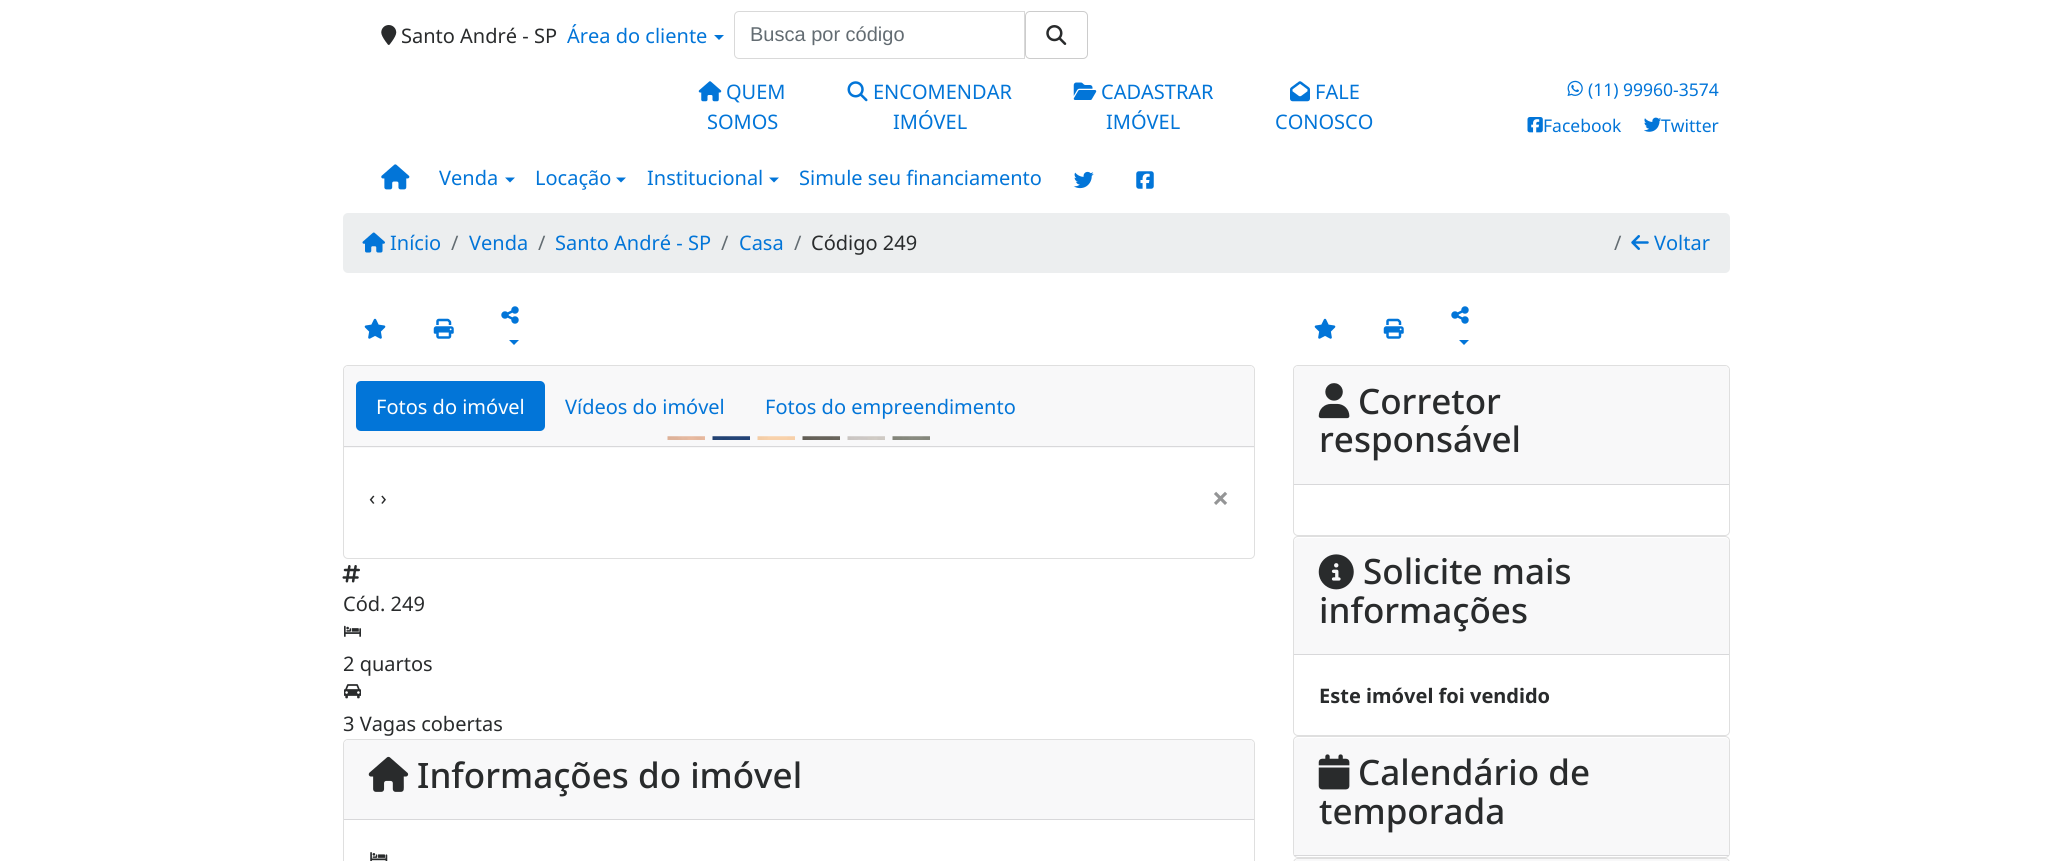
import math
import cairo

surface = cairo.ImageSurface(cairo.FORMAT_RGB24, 2072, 861)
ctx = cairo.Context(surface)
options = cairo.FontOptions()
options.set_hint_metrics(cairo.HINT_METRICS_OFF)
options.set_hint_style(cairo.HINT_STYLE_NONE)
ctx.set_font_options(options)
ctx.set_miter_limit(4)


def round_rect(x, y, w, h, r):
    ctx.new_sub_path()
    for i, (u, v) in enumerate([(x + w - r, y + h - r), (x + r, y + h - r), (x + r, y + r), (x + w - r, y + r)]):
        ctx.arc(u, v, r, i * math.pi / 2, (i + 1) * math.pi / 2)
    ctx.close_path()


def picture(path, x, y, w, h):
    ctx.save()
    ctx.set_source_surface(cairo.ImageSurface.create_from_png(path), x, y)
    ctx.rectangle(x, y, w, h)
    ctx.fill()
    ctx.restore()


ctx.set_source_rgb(1, 1, 1)
ctx.paint()
picture("img1.png", 381, 25, 16, 20)
ctx.select_font_face("Noto Sans")
ctx.set_font_size(20)
ctx.set_source_rgb(0.161, 0.169, 0.173)
ctx.move_to(401, 43)
ctx.show_text("Santo André - SP")
ctx.set_source_rgb(0.008, 0.459, 0.847)
ctx.move_to(567, 43)
ctx.show_text("Área do cliente")
ctx.new_path()
ctx.move_to(714, 35)
ctx.line_to(724, 35)
ctx.line_to(719, 40)
ctx.close_path()
ctx.fill()
ctx.new_path()
ctx.move_to(739, 11.5)
ctx.line_to(1024.5, 11.5)
ctx.line_to(1024.5, 58.5)
ctx.line_to(739, 58.5)
ctx.curve_to(736.5, 58.5, 734.5, 56.5, 734.5, 54)
ctx.line_to(734.5, 16)
ctx.curve_to(734.5, 13.5, 736.5, 11.5, 739, 11.5)
ctx.close_path()
ctx.set_source_rgb(0.851, 0.851, 0.851)
ctx.set_line_width(1)
ctx.stroke()
ctx.select_font_face("Liberation Sans")
ctx.set_source_rgb(0.388, 0.424, 0.447)
ctx.move_to(750, 41)
ctx.show_text("Busca por código")
round_rect(1025.5, 11.5, 62, 47, 4.5)
ctx.set_source_rgb(0.8, 0.8, 0.8)
ctx.stroke()
picture("img2.png", 1046, 25, 21, 20)
picture("img3.png", 698, 81, 24, 21)
ctx.select_font_face("Noto Sans")
ctx.set_source_rgb(0.008, 0.459, 0.847)
ctx.move_to(726, 99)
ctx.show_text("QUEM")
ctx.move_to(707, 129)
ctx.show_text("SOMOS")
picture("img4.png", 847, 81, 21, 21)
ctx.move_to(873, 99)
ctx.show_text("ENCOMENDAR")
ctx.move_to(893, 129)
ctx.show_text("IMÓVEL")
picture("img5.png", 1073, 82, 24, 18)
ctx.move_to(1101, 99)
ctx.show_text("CADASTRAR")
ctx.move_to(1106, 129)
ctx.show_text("IMÓVEL")
picture("img6.png", 1290, 81, 20, 21)
ctx.move_to(1315, 99)
ctx.show_text("FALE")
ctx.move_to(1275, 129)
ctx.show_text("CONOSCO")
picture("img7.png", 1567, 80, 16, 16)
ctx.set_font_size(17.5)
ctx.move_to(1588, 96)
ctx.show_text("(11) 99960-3574")
picture("img8.png", 1527, 117, 16, 16)
ctx.move_to(1543, 132)
ctx.show_text("Facebook")
picture("img9.png", 1644, 117, 18, 15)
ctx.move_to(1661, 132)
ctx.show_text("Twitter")
picture("img10.png", 381, 164, 29, 26)
ctx.set_font_size(20)
ctx.move_to(439, 185)
ctx.show_text("Venda")
ctx.new_path()
ctx.move_to(505, 177.5)
ctx.line_to(515, 177.5)
ctx.line_to(510, 182.5)
ctx.close_path()
ctx.fill()
ctx.move_to(535, 185)
ctx.show_text("Locação")
ctx.new_path()
ctx.move_to(616, 177.5)
ctx.line_to(626, 177.5)
ctx.line_to(621, 182.5)
ctx.close_path()
ctx.fill()
ctx.move_to(647, 185)
ctx.show_text("Institucional")
ctx.new_path()
ctx.move_to(769, 177.5)
ctx.line_to(779, 177.5)
ctx.line_to(774, 182.5)
ctx.close_path()
ctx.fill()
ctx.move_to(799, 185)
ctx.show_text("Simule seu financiamento")
picture("img11.png", 1073, 171, 21, 18)
picture("img12.png", 1136, 171, 18, 18)
ctx.set_source_rgb(0.925, 0.933, 0.937)
round_rect(343, 213, 1387, 60, 5)
ctx.fill()
picture("img13.png", 362, 232, 23, 21)
ctx.set_source_rgb(0.008, 0.459, 0.847)
ctx.move_to(390, 250)
ctx.show_text("Início")
ctx.set_source_rgb(0.388, 0.424, 0.447)
ctx.move_to(451, 250)
ctx.show_text("/")
ctx.set_source_rgb(0.008, 0.459, 0.847)
ctx.move_to(469, 250)
ctx.show_text("Venda")
ctx.set_source_rgb(0.388, 0.424, 0.447)
ctx.move_to(538, 250)
ctx.show_text("/")
ctx.set_source_rgb(0.008, 0.459, 0.847)
ctx.move_to(555, 250)
ctx.show_text("Santo André - SP")
ctx.set_source_rgb(0.388, 0.424, 0.447)
ctx.move_to(721, 250)
ctx.show_text("/")
ctx.set_source_rgb(0.008, 0.459, 0.847)
ctx.move_to(739, 250)
ctx.show_text("Casa")
ctx.set_source_rgb(0.388, 0.424, 0.447)
ctx.move_to(794, 250)
ctx.show_text("/")
ctx.set_source_rgb(0.161, 0.169, 0.173)
ctx.move_to(811, 250)
ctx.show_text("Código 249")
ctx.set_source_rgb(0.388, 0.424, 0.447)
ctx.move_to(1614, 250)
ctx.show_text("/")
picture("img14.png", 1631, 235, 18, 15)
ctx.set_source_rgb(0.008, 0.459, 0.847)
ctx.move_to(1654, 250)
ctx.show_text("Voltar")
picture("img15.png", 364, 318, 22, 21)
picture("img16.png", 433, 318, 21, 21)
picture("img17.png", 501, 306, 18, 18)
ctx.new_path()
ctx.move_to(509, 340)
ctx.line_to(519, 340)
ctx.line_to(514, 345)
ctx.close_path()
ctx.fill()
round_rect(343.5, 365.5, 911, 193, 4.5)
ctx.set_source_rgb(0.875, 0.875, 0.875)
ctx.stroke()
ctx.set_source_rgb(0.969, 0.969, 0.976)
ctx.new_path()
ctx.move_to(348, 366)
ctx.line_to(1250, 366)
ctx.curve_to(1252, 366, 1254, 368, 1254, 370)
ctx.line_to(1254, 448)
ctx.line_to(344, 448)
ctx.line_to(344, 370)
ctx.curve_to(344, 368, 346, 366, 348, 366)
ctx.close_path()
ctx.fill()
ctx.set_source_rgb(0.847, 0.847, 0.855)
ctx.rectangle(344, 446, 910, 1)
ctx.fill()
ctx.set_source_rgb(0.008, 0.459, 0.847)
round_rect(356, 381, 189, 50, 5)
ctx.fill()
ctx.set_source_rgb(1, 1, 1)
ctx.move_to(376, 414)
ctx.show_text("Fotos do imóvel")
ctx.set_source_rgb(0.008, 0.459, 0.847)
ctx.move_to(565, 414)
ctx.show_text("Vídeos do imóvel")
ctx.move_to(765, 414)
ctx.show_text("Fotos do empreendimento")
picture("img18.png", 667, 436, 38, 4)
picture("img19.png", 712, 436, 38, 4)
picture("img20.png", 757, 436, 38, 4)
picture("img21.png", 802, 436, 38, 4)
picture("img22.png", 847, 436, 38, 4)
picture("img23.png", 892, 436, 38, 4)
ctx.set_source_rgb(0.161, 0.169, 0.173)
ctx.move_to(369, 505)
ctx.show_text("‹ ›")
ctx.select_font_face("Noto Sans", cairo.FONT_SLANT_NORMAL, cairo.FONT_WEIGHT_BOLD)
ctx.set_font_size(30)
ctx.set_source_rgb(0.58, 0.584, 0.588)
ctx.move_to(1212, 509)
ctx.show_text("×")
picture("img24.png", 342, 565, 18, 18)
ctx.select_font_face("Noto Sans")
ctx.set_font_size(20)
ctx.set_source_rgb(0.161, 0.169, 0.173)
ctx.move_to(343, 611)
ctx.show_text("Cód. 249")
picture("img25.png", 344, 625, 17, 12)
ctx.move_to(343, 671)
ctx.show_text("2 quartos")
picture("img26.png", 344, 684, 17, 15)
ctx.move_to(343, 731)
ctx.show_text("3 Vagas cobertas")
round_rect(343.5, 739.5, 911, 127, 4.5)
ctx.set_source_rgb(0.875, 0.875, 0.875)
ctx.stroke()
ctx.set_source_rgb(0.969, 0.969, 0.976)
ctx.new_path()
ctx.move_to(348, 740)
ctx.line_to(1250, 740)
ctx.curve_to(1252, 740, 1254, 742, 1254, 744)
ctx.line_to(1254, 820)
ctx.line_to(344, 820)
ctx.line_to(344, 744)
ctx.curve_to(344, 742, 346, 740, 348, 740)
ctx.close_path()
ctx.fill()
ctx.set_source_rgb(0.847, 0.847, 0.855)
ctx.rectangle(344, 819, 910, 1)
ctx.fill()
picture("img27.png", 368, 756, 41, 36)
ctx.select_font_face("Noto Sans Medium")
ctx.set_font_size(35)
ctx.set_source_rgb(0.161, 0.169, 0.173)
ctx.move_to(417, 788)
ctx.show_text("Informações do imóvel")
picture("img28.png", 370, 852, 18, 9)
picture("img15.png", 1314, 318, 22, 21)
picture("img16.png", 1383, 318, 21, 21)
picture("img17.png", 1451, 306, 18, 18)
ctx.set_source_rgb(0.008, 0.459, 0.847)
ctx.new_path()
ctx.move_to(1459, 340)
ctx.line_to(1469, 340)
ctx.line_to(1464, 345)
ctx.close_path()
ctx.fill()
round_rect(1293.5, 365.5, 436, 170, 4.5)
ctx.set_source_rgb(0.875, 0.875, 0.875)
ctx.stroke()
ctx.set_source_rgb(0.969, 0.969, 0.976)
ctx.new_path()
ctx.move_to(1298, 366)
ctx.line_to(1725, 366)
ctx.curve_to(1727, 366, 1729, 368, 1729, 370)
ctx.line_to(1729, 485)
ctx.line_to(1294, 485)
ctx.line_to(1294, 370)
ctx.curve_to(1294, 368, 1296, 366, 1298, 366)
ctx.close_path()
ctx.fill()
ctx.set_source_rgb(0.847, 0.847, 0.855)
ctx.rectangle(1294, 484, 435, 1)
ctx.fill()
picture("img29.png", 1318, 383, 32, 36)
ctx.set_source_rgb(0.161, 0.169, 0.173)
ctx.move_to(1358, 414)
ctx.show_text("Corretor")
ctx.move_to(1319, 452)
ctx.show_text("responsável")
round_rect(1293.5, 536.5, 436, 199, 4.5)
ctx.set_source_rgb(0.875, 0.875, 0.875)
ctx.stroke()
ctx.set_source_rgb(0.969, 0.969, 0.976)
ctx.new_path()
ctx.move_to(1298, 538)
ctx.line_to(1725, 538)
ctx.curve_to(1727, 538, 1729, 540, 1729, 542)
ctx.line_to(1729, 655)
ctx.line_to(1294, 655)
ctx.line_to(1294, 542)
ctx.curve_to(1294, 540, 1296, 538, 1298, 538)
ctx.close_path()
ctx.fill()
ctx.set_source_rgb(0.847, 0.847, 0.855)
ctx.rectangle(1294, 654, 435, 1)
ctx.fill()
picture("img30.png", 1318, 554, 36, 36)
ctx.set_source_rgb(0.161, 0.169, 0.173)
ctx.move_to(1363, 584)
ctx.show_text("Solicite mais")
ctx.move_to(1319, 623)
ctx.show_text("informações")
ctx.select_font_face("Noto Sans", cairo.FONT_SLANT_NORMAL, cairo.FONT_WEIGHT_BOLD)
ctx.set_font_size(20)
ctx.move_to(1319, 703)
ctx.show_text("Este imóvel foi vendido")
round_rect(1293.5, 736.5, 436, 121, 4.5)
ctx.set_source_rgb(0.875, 0.875, 0.875)
ctx.stroke()
ctx.set_source_rgb(0.969, 0.969, 0.976)
ctx.new_path()
ctx.move_to(1298, 738)
ctx.line_to(1725, 738)
ctx.curve_to(1727, 738, 1729, 740, 1729, 742)
ctx.line_to(1729, 856)
ctx.line_to(1294, 856)
ctx.line_to(1294, 742)
ctx.curve_to(1294, 740, 1296, 738, 1298, 738)
ctx.close_path()
ctx.fill()
ctx.set_source_rgb(0.847, 0.847, 0.855)
ctx.rectangle(1294, 855, 435, 1)
ctx.fill()
picture("img31.png", 1318, 754, 32, 36)
ctx.select_font_face("Noto Sans Medium")
ctx.set_font_size(35)
ctx.set_source_rgb(0.161, 0.169, 0.173)
ctx.move_to(1358, 785)
ctx.show_text("Calendário de")
ctx.move_to(1319, 824)
ctx.show_text("temporada")
round_rect(1293.5, 858.5, 436, 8, 4.5)
ctx.set_source_rgb(0.875, 0.875, 0.875)
ctx.stroke()
ctx.set_source_rgb(0.969, 0.969, 0.976)
ctx.new_path()
ctx.move_to(1298, 859)
ctx.line_to(1725, 859)
ctx.curve_to(1727, 859, 1729, 861, 1729, 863)
ctx.line_to(1729, 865)
ctx.line_to(1294, 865)
ctx.line_to(1294, 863)
ctx.curve_to(1294, 861, 1296, 859, 1298, 859)
ctx.close_path()
ctx.fill()
surface.write_to_png("page.png")
